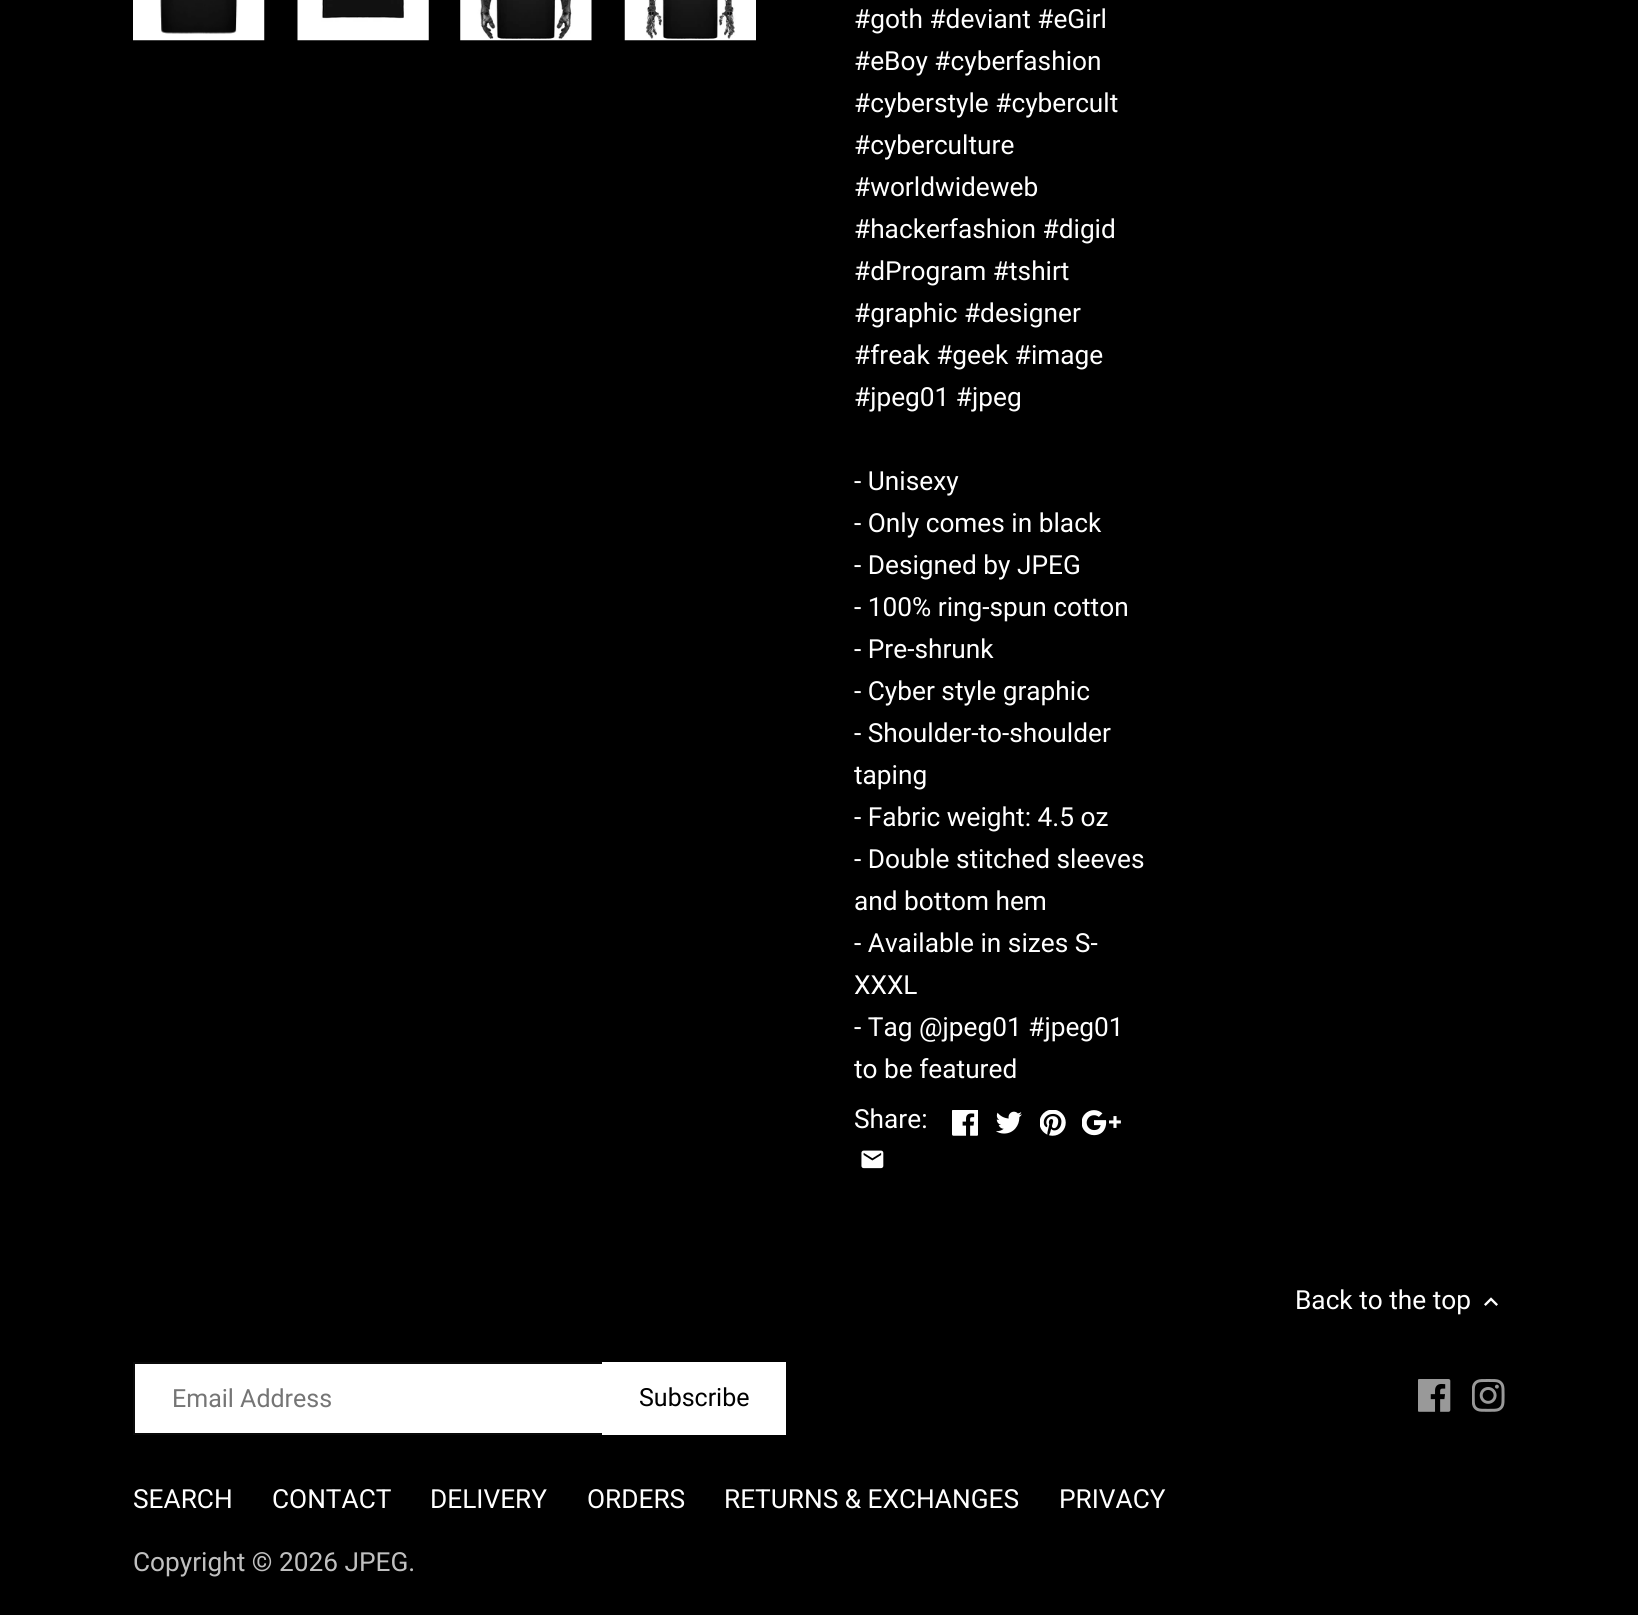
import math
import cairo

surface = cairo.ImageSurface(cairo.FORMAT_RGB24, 1638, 1615)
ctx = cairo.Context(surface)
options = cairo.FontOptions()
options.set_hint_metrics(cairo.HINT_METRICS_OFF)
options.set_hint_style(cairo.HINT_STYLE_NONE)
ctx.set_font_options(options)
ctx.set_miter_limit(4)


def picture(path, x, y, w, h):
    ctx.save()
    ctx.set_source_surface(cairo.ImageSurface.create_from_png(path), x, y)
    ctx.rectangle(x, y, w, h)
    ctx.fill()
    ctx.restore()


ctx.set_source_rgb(0, 0, 0)
ctx.paint()
picture("img1.png", 133, 0, 132, 41)
picture("img2.png", 297, 0, 132, 41)
picture("img3.png", 460, 0, 132, 41)
picture("img4.png", 624, 0, 132, 41)
ctx.select_font_face("Roboto")
ctx.set_font_size(26.25)
ctx.set_source_rgb(1, 1, 1)
ctx.move_to(854, 28)
ctx.show_text("#goth #deviant #eGirl")
ctx.move_to(854, 70)
ctx.show_text("#eBoy #cyberfashion")
ctx.move_to(854, 112)
ctx.show_text("#cyberstyle #cybercult")
ctx.move_to(854, 154)
ctx.show_text("#cyberculture")
ctx.move_to(854, 196)
ctx.show_text("#worldwideweb")
ctx.move_to(854, 238)
ctx.show_text("#hackerfashion #digid")
ctx.move_to(854, 280)
ctx.show_text("#dProgram #tshirt")
ctx.move_to(854, 322)
ctx.show_text("#graphic #designer")
ctx.move_to(854, 364)
ctx.show_text("#freak #geek #image")
ctx.move_to(854, 406)
ctx.show_text("#jpeg01 #jpeg")
ctx.move_to(854, 490)
ctx.show_text("- Unisexy")
ctx.move_to(854, 532)
ctx.show_text("- Only comes in black")
ctx.move_to(854, 574)
ctx.show_text("- Designed by JPEG")
ctx.move_to(854, 616)
ctx.show_text("- 100% ring-spun cotton")
ctx.move_to(854, 658)
ctx.show_text("- Pre-shrunk")
ctx.move_to(854, 700)
ctx.show_text("- Cyber style graphic")
ctx.move_to(854, 742)
ctx.show_text("- Shoulder-to-shoulder")
ctx.move_to(854, 784)
ctx.show_text("taping")
ctx.move_to(854, 826)
ctx.show_text("- Fabric weight: 4.5 oz")
ctx.move_to(854, 868)
ctx.show_text("- Double stitched sleeves")
ctx.move_to(854, 910)
ctx.show_text("and bottom hem")
ctx.move_to(854, 952)
ctx.show_text("- Available in sizes S-")
ctx.move_to(854, 994)
ctx.show_text("XXXL")
ctx.move_to(854, 1036)
ctx.show_text("- Tag @jpeg01 #jpeg01")
ctx.move_to(854, 1078)
ctx.show_text("to be featured")
ctx.move_to(854, 1128)
ctx.show_text("Share:")
picture("img5.png", 952, 1110, 26, 26)
picture("img6.png", 996, 1111, 26, 23)
picture("img7.png", 1040, 1110, 26, 26)
picture("img8.png", 1082, 1110, 39, 26)
picture("img9.png", 861, 1150, 23, 19)
ctx.move_to(1295, 1309)
ctx.show_text("Back to the top")
picture("img10.png", 1484, 1297, 14, 9)
ctx.rectangle(135, 1364, 467, 69)
ctx.fill()
ctx.rectangle(134, 1363, 649, 71)
ctx.set_source_rgb(0.039, 0.039, 0.039)
ctx.stroke()
ctx.set_font_size(25)
ctx.set_source_rgb(0.459, 0.459, 0.459)
ctx.move_to(172, 1407)
ctx.show_text("Email Address")
ctx.set_source_rgb(1, 1, 1)
ctx.rectangle(602, 1362, 184, 73)
ctx.fill()
ctx.set_source_rgb(0, 0, 0)
ctx.move_to(639, 1406)
ctx.show_text("Subscribe")
picture("img11.png", 1418, 1379, 33, 33)
picture("img12.png", 1472, 1379, 33, 33)
ctx.set_font_size(26.25)
ctx.set_source_rgb(1, 1, 1)
ctx.move_to(133, 1508)
ctx.show_text("SEARCH")
ctx.move_to(272, 1508)
ctx.show_text("CONTACT")
ctx.move_to(430, 1508)
ctx.show_text("DELIVERY")
ctx.move_to(587, 1508)
ctx.show_text("ORDERS")
ctx.move_to(724, 1508)
ctx.show_text("RETURNS & EXCHANGES")
ctx.move_to(1059, 1508)
ctx.show_text("PRIVACY")
ctx.set_source_rgb(0.753, 0.753, 0.753)
ctx.move_to(133, 1571)
ctx.show_text("Copyright © 2026 JPEG.")
surface.write_to_png("page.png")
